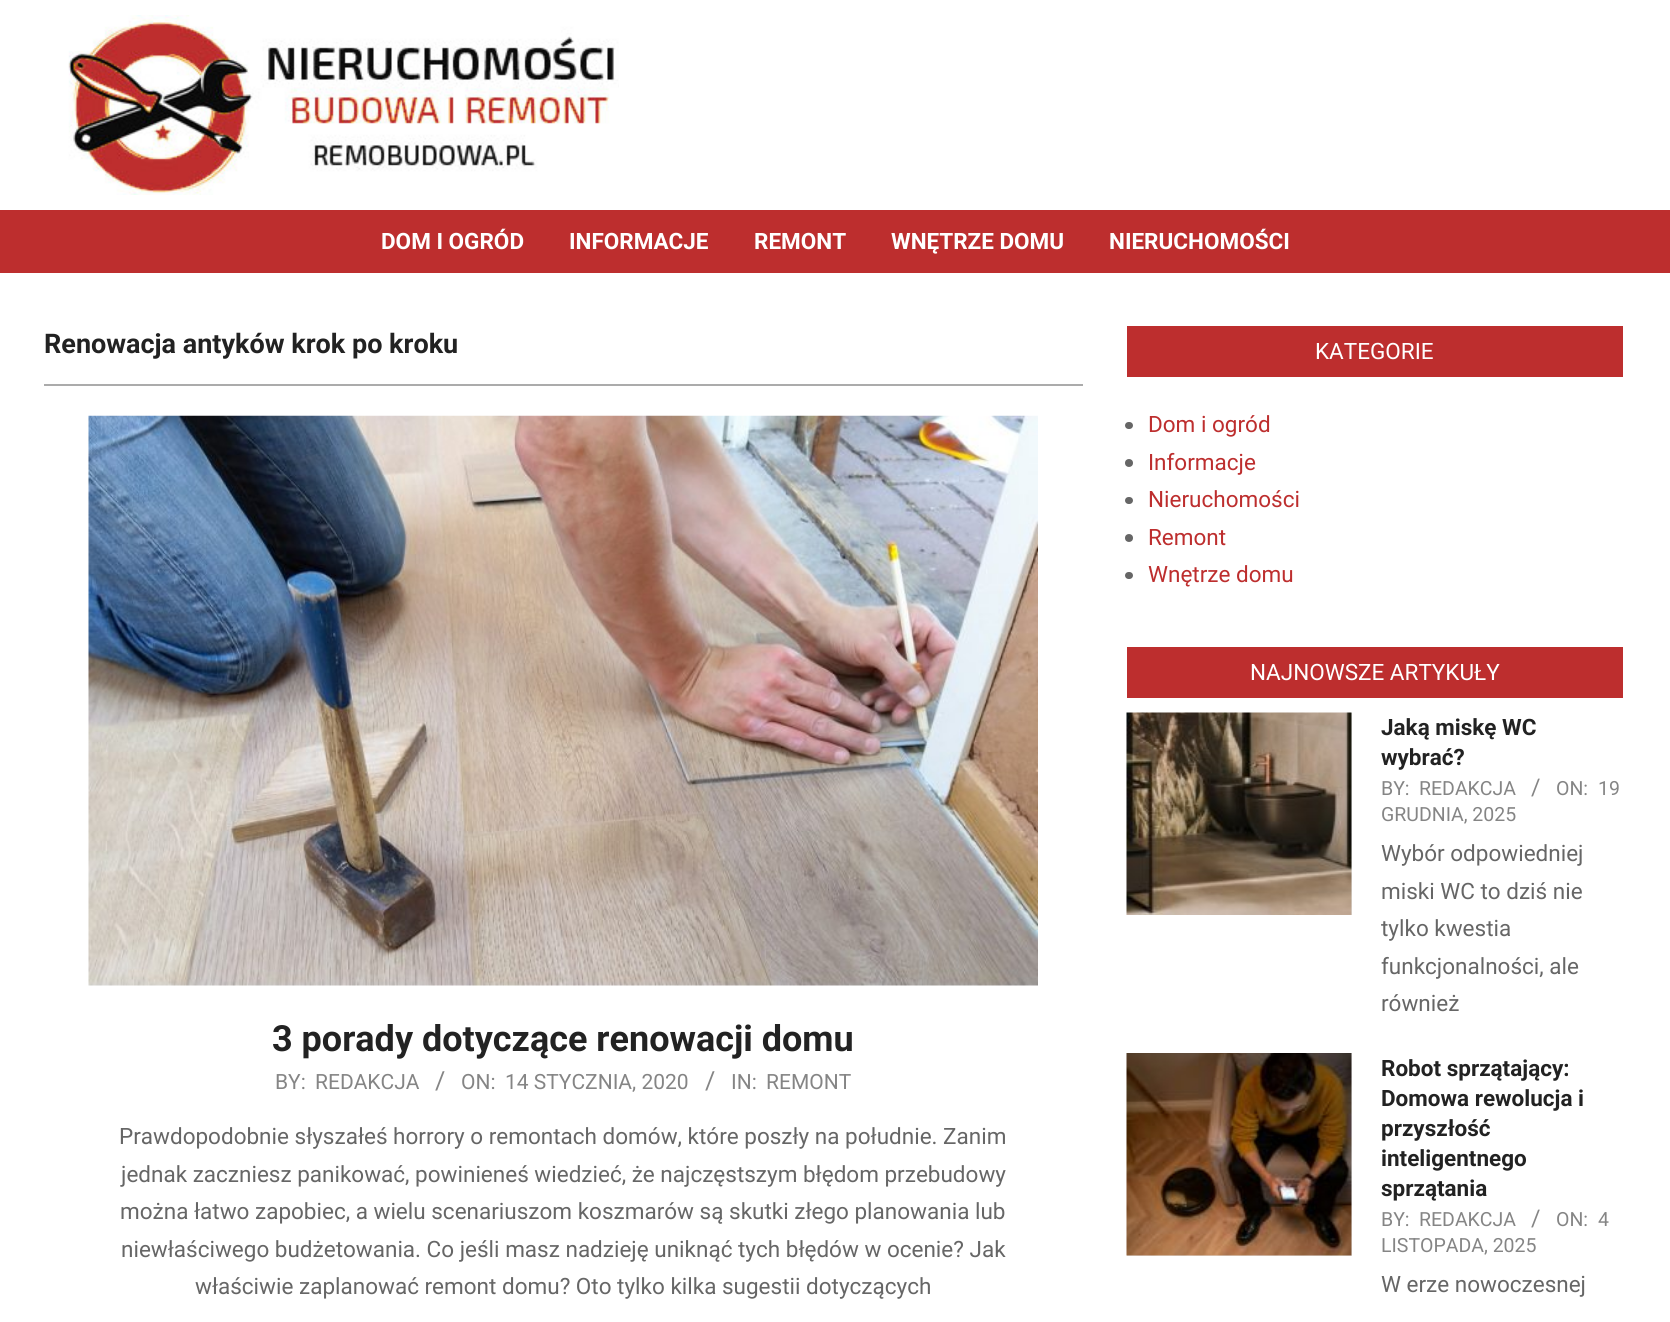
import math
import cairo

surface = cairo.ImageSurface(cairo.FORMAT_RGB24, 1670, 1322)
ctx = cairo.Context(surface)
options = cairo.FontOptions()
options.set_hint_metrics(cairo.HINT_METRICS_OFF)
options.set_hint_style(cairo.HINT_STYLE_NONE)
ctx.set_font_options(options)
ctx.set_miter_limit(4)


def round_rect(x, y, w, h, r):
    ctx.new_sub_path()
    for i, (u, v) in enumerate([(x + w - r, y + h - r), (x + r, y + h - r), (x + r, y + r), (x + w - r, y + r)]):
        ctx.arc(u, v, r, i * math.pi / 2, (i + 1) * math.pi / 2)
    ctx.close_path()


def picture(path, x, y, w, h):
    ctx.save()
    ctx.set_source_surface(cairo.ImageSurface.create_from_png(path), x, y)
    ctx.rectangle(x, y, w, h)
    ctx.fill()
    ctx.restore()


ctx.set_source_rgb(1, 1, 1)
ctx.paint()
picture("img1.png", 68, 15, 551, 180)
ctx.set_source_rgb(0.741, 0.18, 0.18)
ctx.rectangle(0, 210, 1670, 63)
ctx.fill()
ctx.select_font_face("Roboto", cairo.FONT_SLANT_NORMAL, cairo.FONT_WEIGHT_BOLD)
ctx.set_font_size(22.5)
ctx.set_source_rgb(1, 1, 1)
ctx.move_to(381, 249)
ctx.show_text("DOM I OGRÓD")
ctx.move_to(569, 249)
ctx.show_text("INFORMACJE")
ctx.move_to(754, 249)
ctx.show_text("REMONT")
ctx.move_to(891, 249)
ctx.show_text("WNĘTRZE DOMU")
ctx.move_to(1109, 249)
ctx.show_text("NIERUCHOMOŚCI")
ctx.set_source_rgb(0.671, 0.671, 0.671)
ctx.rectangle(44, 384, 1039, 2)
ctx.fill()
ctx.set_font_size(27)
ctx.set_source_rgb(0.133, 0.133, 0.133)
ctx.move_to(44, 353)
ctx.show_text("Renowacja antyków krok po kroku")
picture("img2.png", 88, 415, 950, 571)
ctx.set_font_size(36)
ctx.move_to(272, 1051)
ctx.show_text("3 porady dotyczące renowacji domu")
ctx.select_font_face("Roboto")
ctx.set_font_size(21)
ctx.set_source_rgb(0.522, 0.522, 0.522)
ctx.move_to(275, 1089)
ctx.show_text("BY:")
ctx.move_to(315, 1089)
ctx.show_text("REDAKCJA")
ctx.set_font_size(25)
ctx.move_to(435, 1089)
ctx.show_text("/")
ctx.set_font_size(21)
ctx.move_to(461, 1089)
ctx.show_text("ON:")
ctx.move_to(505, 1089)
ctx.show_text("14 STYCZNIA, 2020")
ctx.set_font_size(25)
ctx.move_to(705, 1089)
ctx.show_text("/")
ctx.set_font_size(21)
ctx.move_to(731, 1089)
ctx.show_text("IN:")
ctx.move_to(766, 1089)
ctx.show_text("REMONT")
ctx.set_font_size(22.5)
ctx.set_source_rgb(0.4, 0.4, 0.4)
ctx.move_to(119, 1144)
ctx.show_text("Prawdopodobnie słyszałeś horrory o remontach domów, które poszły na południe. Zanim")
ctx.move_to(121, 1182)
ctx.show_text("jednak zaczniesz panikować, powinieneś wiedzieć, że najczęstszym błędom przebudowy")
ctx.move_to(120, 1219)
ctx.show_text("można łatwo zapobiec, a wielu scenariuszom koszmarów są skutki złego planowania lub")
ctx.move_to(121, 1257)
ctx.show_text("niewłaściwego budżetowania. Co jeśli masz nadzieję uniknąć tych błędów w ocenie? Jak")
ctx.move_to(195, 1294)
ctx.show_text("właściwie zaplanować remont domu? Oto tylko kilka sugestii dotyczących")
ctx.set_source_rgb(0.741, 0.18, 0.18)
ctx.rectangle(1127, 326, 496, 51)
ctx.fill()
ctx.set_source_rgb(1, 1, 1)
ctx.move_to(1315, 359)
ctx.show_text("KATEGORIE")
ctx.set_source_rgb(0.4, 0.4, 0.4)
round_rect(1125, 422, 8, 7, 3.5)
ctx.fill()
ctx.set_source_rgb(0.741, 0.18, 0.18)
ctx.move_to(1148, 432)
ctx.show_text("Dom i ogród")
ctx.set_source_rgb(0.4, 0.4, 0.4)
ctx.new_path()
ctx.arc(1129, 463, 4, 0, 2 * math.pi)
ctx.fill()
ctx.set_source_rgb(0.741, 0.18, 0.18)
ctx.move_to(1148, 470)
ctx.show_text("Informacje")
ctx.set_source_rgb(0.4, 0.4, 0.4)
round_rect(1125, 497, 8, 7, 3.5)
ctx.fill()
ctx.set_source_rgb(0.741, 0.18, 0.18)
ctx.move_to(1148, 507)
ctx.show_text("Nieruchomości")
ctx.set_source_rgb(0.4, 0.4, 0.4)
ctx.new_path()
ctx.arc(1129, 538, 4, 0, 2 * math.pi)
ctx.fill()
ctx.set_source_rgb(0.741, 0.18, 0.18)
ctx.move_to(1148, 545)
ctx.show_text("Remont")
ctx.set_source_rgb(0.4, 0.4, 0.4)
round_rect(1125, 572, 8, 7, 3.5)
ctx.fill()
ctx.set_source_rgb(0.741, 0.18, 0.18)
ctx.move_to(1148, 582)
ctx.show_text("Wnętrze domu")
ctx.rectangle(1127, 647, 496, 51)
ctx.fill()
ctx.set_source_rgb(1, 1, 1)
ctx.move_to(1250, 680)
ctx.show_text("NAJNOWSZE ARTYKUŁY")
ctx.set_source_rgb(0.902, 0.902, 0.902)
ctx.rectangle(1351, 713, 1, 202)
ctx.fill()
picture("img3.png", 1126, 712, 226, 203)
ctx.select_font_face("Roboto", cairo.FONT_SLANT_NORMAL, cairo.FONT_WEIGHT_BOLD)
ctx.set_source_rgb(0.133, 0.133, 0.133)
ctx.move_to(1381, 735)
ctx.show_text("Jaką miskę WC")
ctx.move_to(1381, 765)
ctx.show_text("wybrać?")
ctx.select_font_face("Roboto")
ctx.set_font_size(19.5)
ctx.set_source_rgb(0.522, 0.522, 0.522)
ctx.move_to(1381, 795)
ctx.show_text("BY:")
ctx.move_to(1419, 795)
ctx.show_text("REDAKCJA")
ctx.set_font_size(23)
ctx.move_to(1531, 795)
ctx.show_text("/")
ctx.set_font_size(19.5)
ctx.move_to(1556, 795)
ctx.show_text("ON:")
ctx.move_to(1598, 795)
ctx.show_text("19")
ctx.move_to(1381, 821)
ctx.show_text("GRUDNIA, 2025")
ctx.set_font_size(22.5)
ctx.set_source_rgb(0.4, 0.4, 0.4)
ctx.move_to(1381, 861)
ctx.show_text("Wybór odpowiedniej")
ctx.move_to(1381, 899)
ctx.show_text("miski WC to dziś nie")
ctx.move_to(1381, 936)
ctx.show_text("tylko kwestia")
ctx.move_to(1381, 974)
ctx.show_text("funkcjonalności, ale")
ctx.move_to(1381, 1011)
ctx.show_text("również")
ctx.set_source_rgb(0.902, 0.902, 0.902)
ctx.rectangle(1127, 1053, 225, 203)
ctx.fill()
picture("img4.png", 1126, 1053, 226, 203)
ctx.select_font_face("Roboto", cairo.FONT_SLANT_NORMAL, cairo.FONT_WEIGHT_BOLD)
ctx.set_source_rgb(0.133, 0.133, 0.133)
ctx.move_to(1381, 1076)
ctx.show_text("Robot sprzątający:")
ctx.move_to(1381, 1106)
ctx.show_text("Domowa rewolucja i")
ctx.move_to(1381, 1136)
ctx.show_text("przyszłość")
ctx.move_to(1381, 1166)
ctx.show_text("inteligentnego")
ctx.move_to(1381, 1196)
ctx.show_text("sprzątania")
ctx.select_font_face("Roboto")
ctx.set_font_size(19.5)
ctx.set_source_rgb(0.522, 0.522, 0.522)
ctx.move_to(1381, 1226)
ctx.show_text("BY:")
ctx.move_to(1419, 1226)
ctx.show_text("REDAKCJA")
ctx.set_font_size(23)
ctx.move_to(1531, 1226)
ctx.show_text("/")
ctx.set_font_size(19.5)
ctx.move_to(1556, 1226)
ctx.show_text("ON:")
ctx.move_to(1598, 1226)
ctx.show_text("4")
ctx.move_to(1381, 1252)
ctx.show_text("LISTOPADA, 2025")
ctx.set_font_size(22.5)
ctx.set_source_rgb(0.4, 0.4, 0.4)
ctx.move_to(1381, 1292)
ctx.show_text("W erze nowoczesnej")
surface.write_to_png("page.png")
